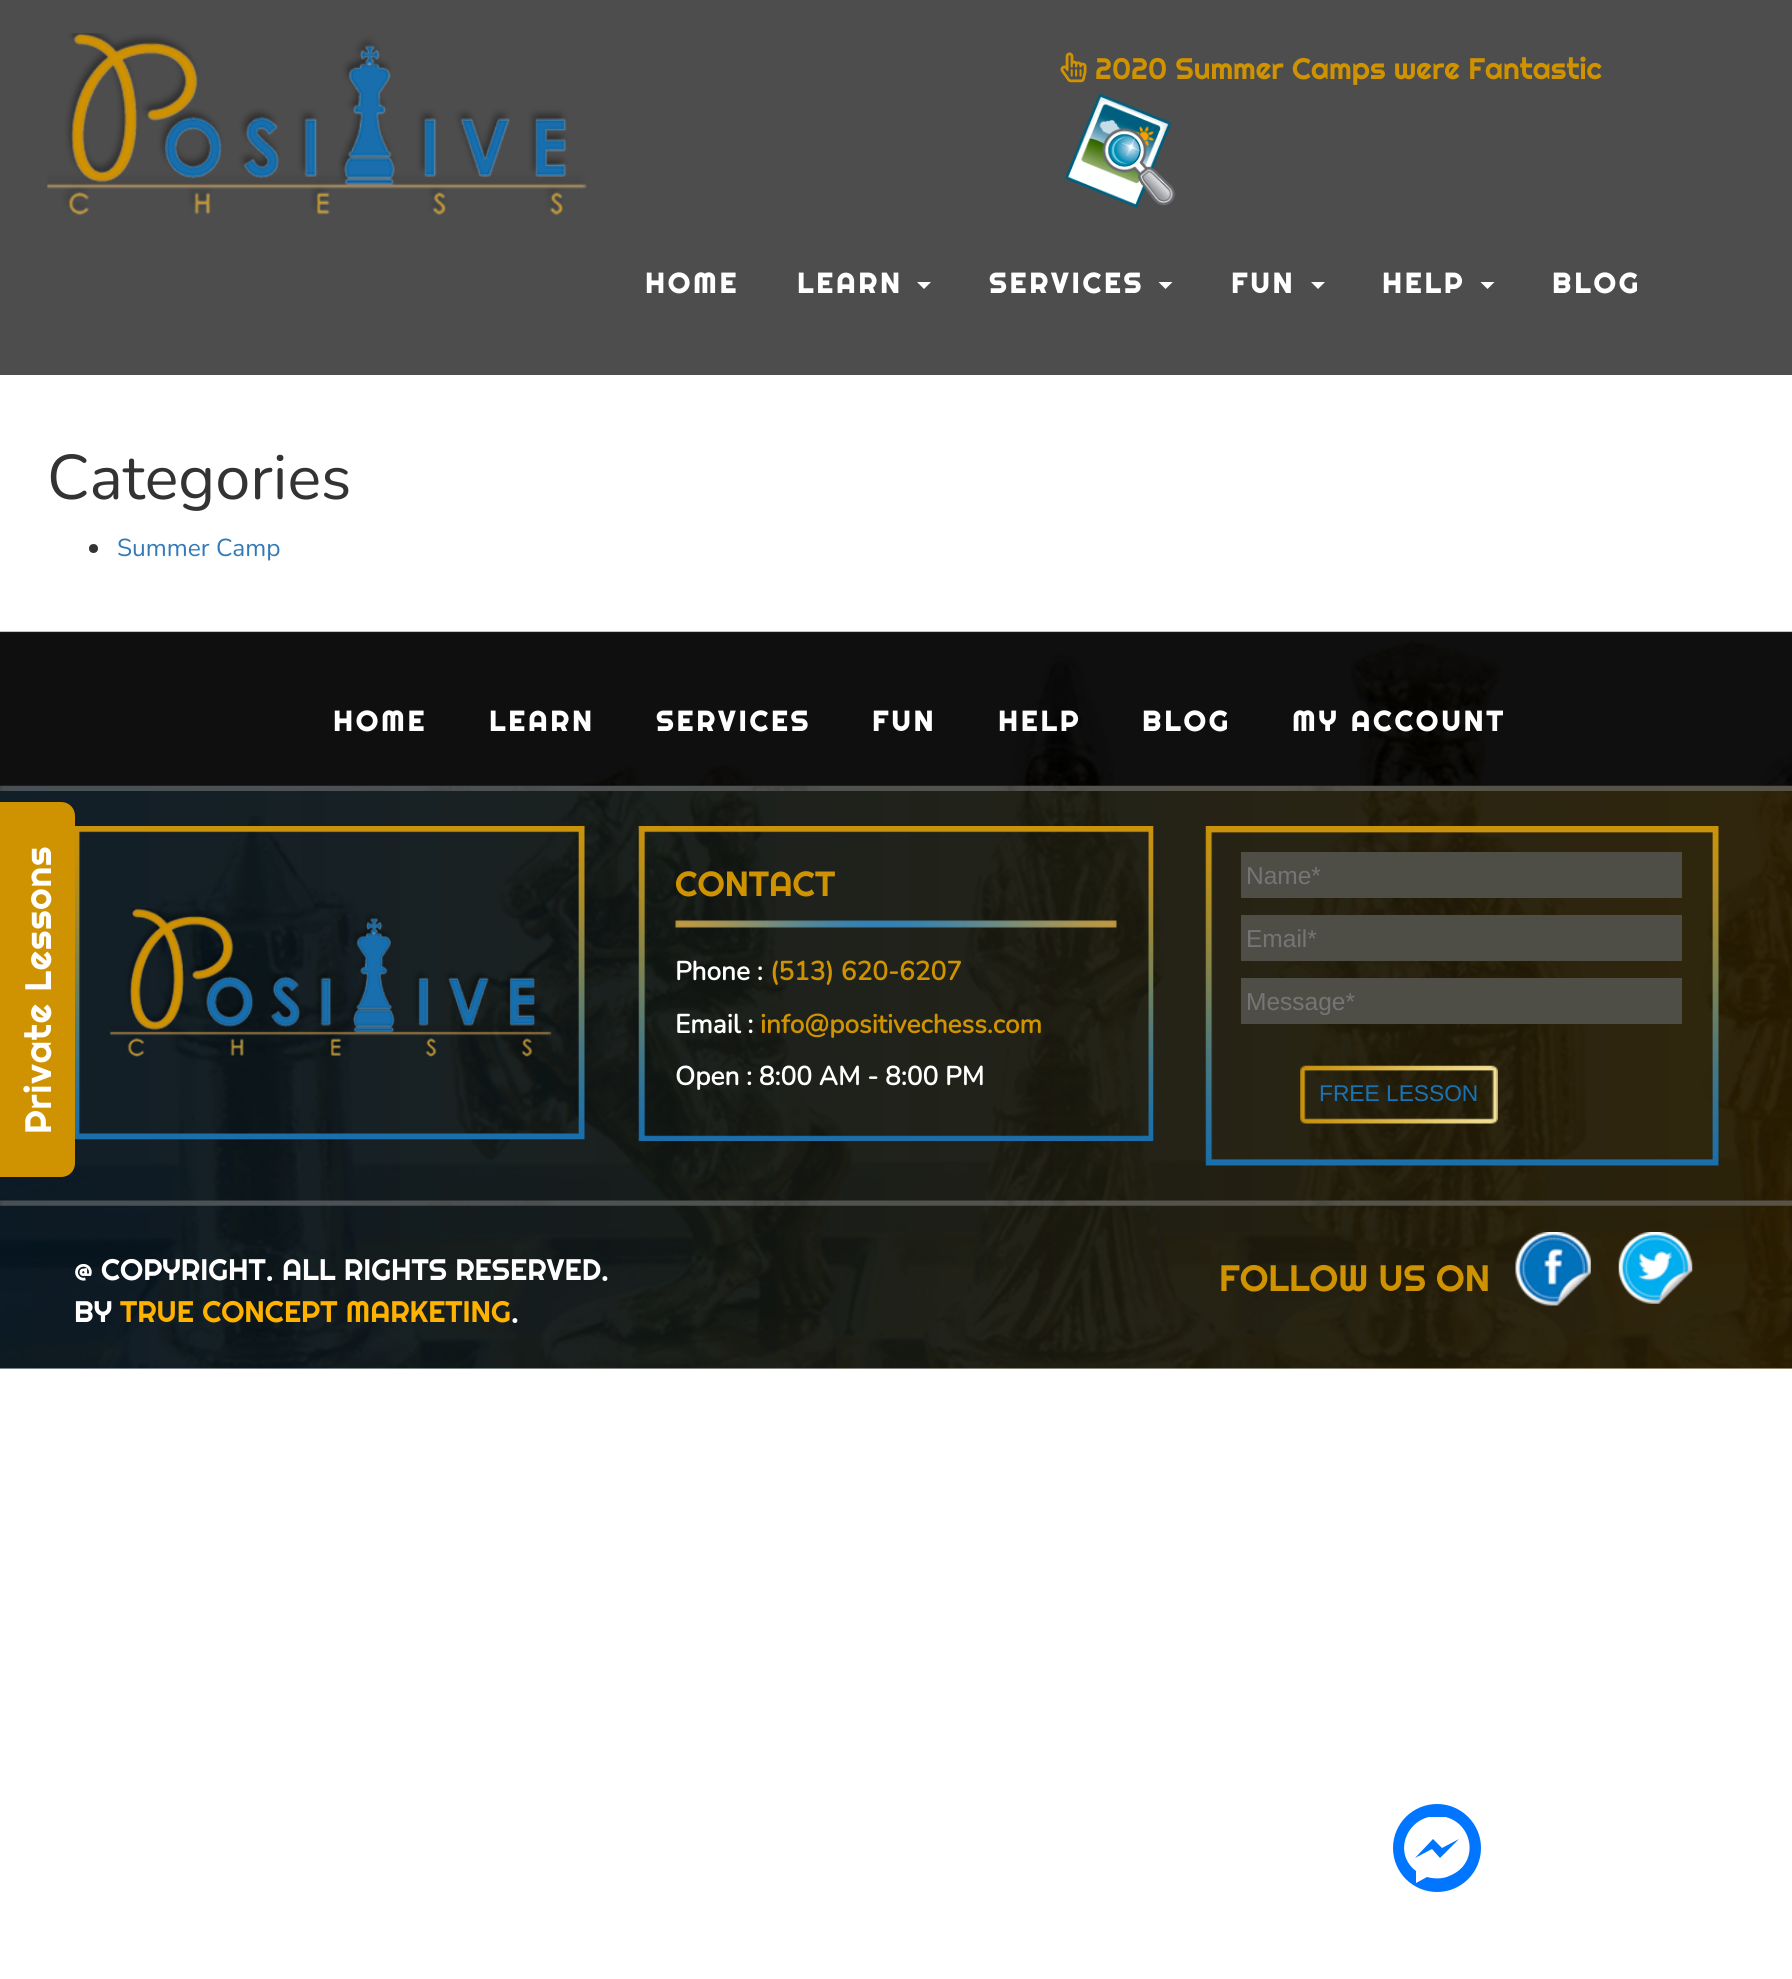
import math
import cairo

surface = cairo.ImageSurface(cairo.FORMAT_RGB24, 1792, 1979)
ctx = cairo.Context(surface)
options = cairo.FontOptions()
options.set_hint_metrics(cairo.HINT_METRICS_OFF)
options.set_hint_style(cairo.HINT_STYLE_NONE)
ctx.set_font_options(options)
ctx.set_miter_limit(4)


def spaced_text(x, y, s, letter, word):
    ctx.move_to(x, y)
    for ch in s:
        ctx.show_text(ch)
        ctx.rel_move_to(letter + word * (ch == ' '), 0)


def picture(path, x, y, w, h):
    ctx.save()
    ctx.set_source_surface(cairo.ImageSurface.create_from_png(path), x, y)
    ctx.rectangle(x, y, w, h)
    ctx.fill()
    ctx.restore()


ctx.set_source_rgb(1, 1, 1)
ctx.paint()
ctx.set_source_rgb(0.302, 0.302, 0.302)
ctx.rectangle(0, 0, 1792, 375)
ctx.fill()
picture("img1.png", 47, 33, 540, 183)
picture("img2.png", 1060, 52, 27, 31)
ctx.select_font_face("Righteous")
ctx.set_font_size(29.75)
ctx.set_source_rgb(0.812, 0.573, 0)
ctx.move_to(1095, 79)
ctx.show_text("2020 Summer Camps were Fantastic")
picture("img3.png", 1065, 93, 111, 115)
ctx.select_font_face("Righteous", cairo.FONT_SLANT_NORMAL, cairo.FONT_WEIGHT_BOLD)
ctx.set_font_size(28)
ctx.set_source_rgb(1, 1, 1)
spaced_text(645, 293, "HOME", 3.5, 0)
spaced_text(797, 293, "LEARN", 3.5, 0)
ctx.new_path()
ctx.move_to(917, 282)
ctx.line_to(931, 282)
ctx.line_to(924, 289)
ctx.close_path()
ctx.fill()
spaced_text(989, 293, "SERVICES", 3.5, 0)
ctx.new_path()
ctx.move_to(1158.5, 282)
ctx.line_to(1172.5, 282)
ctx.line_to(1165.5, 289)
ctx.close_path()
ctx.fill()
spaced_text(1231, 293, "FUN", 3.5, 0)
ctx.new_path()
ctx.move_to(1311, 282)
ctx.line_to(1325, 282)
ctx.line_to(1318, 289)
ctx.close_path()
ctx.fill()
spaced_text(1382, 293, "HELP", 3.5, 0)
ctx.new_path()
ctx.move_to(1480.5, 282)
ctx.line_to(1494.5, 282)
ctx.line_to(1487.5, 289)
ctx.close_path()
ctx.fill()
spaced_text(1552, 293, "BLOG", 3.5, 0)
ctx.select_font_face("Nunito ExtraLight")
ctx.set_font_size(63)
ctx.set_source_rgb(0.2, 0.2, 0.2)
ctx.move_to(47, 499)
ctx.show_text("Categories")
ctx.new_path()
ctx.arc(93.5, 548.5, 4.5, 0, 2 * math.pi)
ctx.fill()
ctx.set_font_size(24.5)
ctx.set_source_rgb(0.2, 0.478, 0.718)
ctx.move_to(117, 556)
ctx.show_text("Summer Camp")
picture("img4.png", 0, 631, 1792, 738)
gradient = cairo.LinearGradient(0, 1080, 1792, 1080)
gradient.add_color_stop_rgba(0, 0.098, 0.435, 0.678, 0.16)
gradient.add_color_stop_rgba(1, 0.812, 0.569, 0, 0.18)
ctx.set_source(gradient)
ctx.rectangle(0, 791, 1792, 578)
ctx.fill()
ctx.set_source_rgb(0.812, 0.576, 0.004)
ctx.new_path()
ctx.move_to(0, 1177)
ctx.line_to(0, 802)
ctx.line_to(61, 802)
ctx.curve_to(69, 802, 75, 808, 75, 816)
ctx.line_to(75, 1163)
ctx.curve_to(75, 1171, 69, 1177, 61, 1177)
ctx.close_path()
ctx.fill()
ctx.select_font_face("Righteous")
ctx.set_font_size(36.75)
ctx.set_source_rgb(1, 1, 1)
ctx.save()
ctx.translate(51, 1134)
ctx.rotate(-90 * math.pi / 180)
spaced_text(0, 0, "Private Lessons", 0.9, 0)
ctx.restore()
ctx.select_font_face("Righteous", cairo.FONT_SLANT_NORMAL, cairo.FONT_WEIGHT_BOLD)
ctx.set_font_size(28)
spaced_text(333, 731, "HOME", 3.5, 0)
spaced_text(489, 731, "LEARN", 3.5, 0)
spaced_text(656, 731, "SERVICES", 3.5, 0)
spaced_text(872, 731, "FUN", 3.5, 0)
spaced_text(998, 731, "HELP", 3.5, 0)
spaced_text(1142, 731, "BLOG", 3.5, 0)
spaced_text(1292, 731, "MY ACCOUNT", 3.5, 0)
picture("img5.png", 0, 785, 1792, 6)
picture("img6.png", 75, 826, 510, 314)
picture("img7.png", 110, 908, 442, 149)
picture("img8.png", 638, 826, 516, 315)
ctx.select_font_face("Righteous")
ctx.set_font_size(35)
ctx.set_source_rgb(0.812, 0.573, 0)
ctx.move_to(675, 896)
ctx.show_text("CONTACT")
picture("img9.png", 675, 920, 442, 8)
ctx.select_font_face("Nunito", cairo.FONT_SLANT_NORMAL, cairo.FONT_WEIGHT_BOLD)
ctx.set_font_size(26.25)
ctx.set_source_rgb(1, 1, 1)
ctx.move_to(675, 980)
ctx.show_text("Phone :")
ctx.set_source_rgb(0.812, 0.573, 0)
ctx.move_to(770, 980)
ctx.show_text("(513) 620-6207")
ctx.set_source_rgb(1, 1, 1)
ctx.move_to(675, 1033)
ctx.show_text("Email :")
ctx.set_source_rgb(0.812, 0.573, 0)
ctx.move_to(760, 1033)
ctx.show_text("info@positivechess.com")
ctx.set_source_rgb(1, 1, 1)
ctx.move_to(675, 1085)
ctx.show_text("Open : 8:00 AM - 8:00 PM")
picture("img10.png", 1205, 826, 514, 340)
ctx.set_source_rgb(0.31, 0.306, 0.275)
ctx.rectangle(1241, 852, 441, 46)
ctx.fill()
ctx.select_font_face("Liberation Sans")
ctx.set_font_size(24.5)
ctx.set_source_rgb(0.459, 0.459, 0.459)
ctx.move_to(1246, 884)
ctx.show_text("Name*")
ctx.set_source_rgb(0.31, 0.306, 0.275)
ctx.rectangle(1241, 915, 441, 46)
ctx.fill()
ctx.set_source_rgb(0.459, 0.459, 0.459)
ctx.move_to(1246, 947)
ctx.show_text("Email*")
ctx.set_source_rgb(0.31, 0.306, 0.275)
ctx.rectangle(1241, 978, 441, 46)
ctx.fill()
ctx.set_source_rgb(0.459, 0.459, 0.459)
ctx.move_to(1246, 1010)
ctx.show_text("Message*")
picture("img11.png", 1300, 1065, 198, 59)
ctx.set_font_size(22.75)
ctx.set_source_rgb(0.098, 0.455, 0.71)
ctx.move_to(1319, 1101)
ctx.show_text("FREE LESSON")
picture("img12.png", 0, 1200, 1792, 6)
ctx.select_font_face("Righteous")
ctx.set_font_size(29.75)
ctx.set_source_rgb(1, 1, 1)
ctx.move_to(74, 1280)
ctx.show_text("@ COPYRIGHT. ALL RIGHTS RESERVED.")
ctx.move_to(74, 1322)
ctx.show_text("BY")
ctx.set_source_rgb(1, 0.702, 0)
ctx.move_to(120, 1322)
ctx.show_text("TRUE CONCEPT MARKETING")
ctx.set_source_rgb(1, 1, 1)
ctx.move_to(511, 1322)
ctx.show_text(".")
ctx.set_font_size(36.75)
ctx.set_source_rgb(0.812, 0.573, 0)
ctx.move_to(1219, 1291)
ctx.show_text("FOLLOW US ON")
picture("img13.png", 1515, 1232, 76, 74)
picture("img14.png", 1618, 1232, 75, 72)
ctx.set_source_rgb(0, 0.459, 1)
ctx.arc(1437, 1848, 44, 0, 2 * math.pi)
ctx.fill()
ctx.save()
ctx.rectangle(1404, 1817, 66, 66)
ctx.clip()
ctx.set_source_rgb(1, 1, 1)
ctx.new_path()
ctx.move_to(1437, 1816)
ctx.curve_to(1407, 1816, 1392, 1853, 1416, 1871)
ctx.line_to(1416, 1883)
ctx.line_to(1427, 1877)
ctx.curve_to(1434, 1879, 1443, 1879, 1449, 1876)
ctx.curve_to(1483, 1863, 1472, 1816, 1437, 1816)
ctx.close_path()
ctx.move_to(1440, 1858)
ctx.line_to(1432, 1849)
ctx.line_to(1415, 1858)
ctx.line_to(1433, 1839)
ctx.line_to(1442, 1848)
ctx.line_to(1459, 1839)
ctx.close_path()
ctx.fill()
ctx.restore()
surface.write_to_png("page.png")
